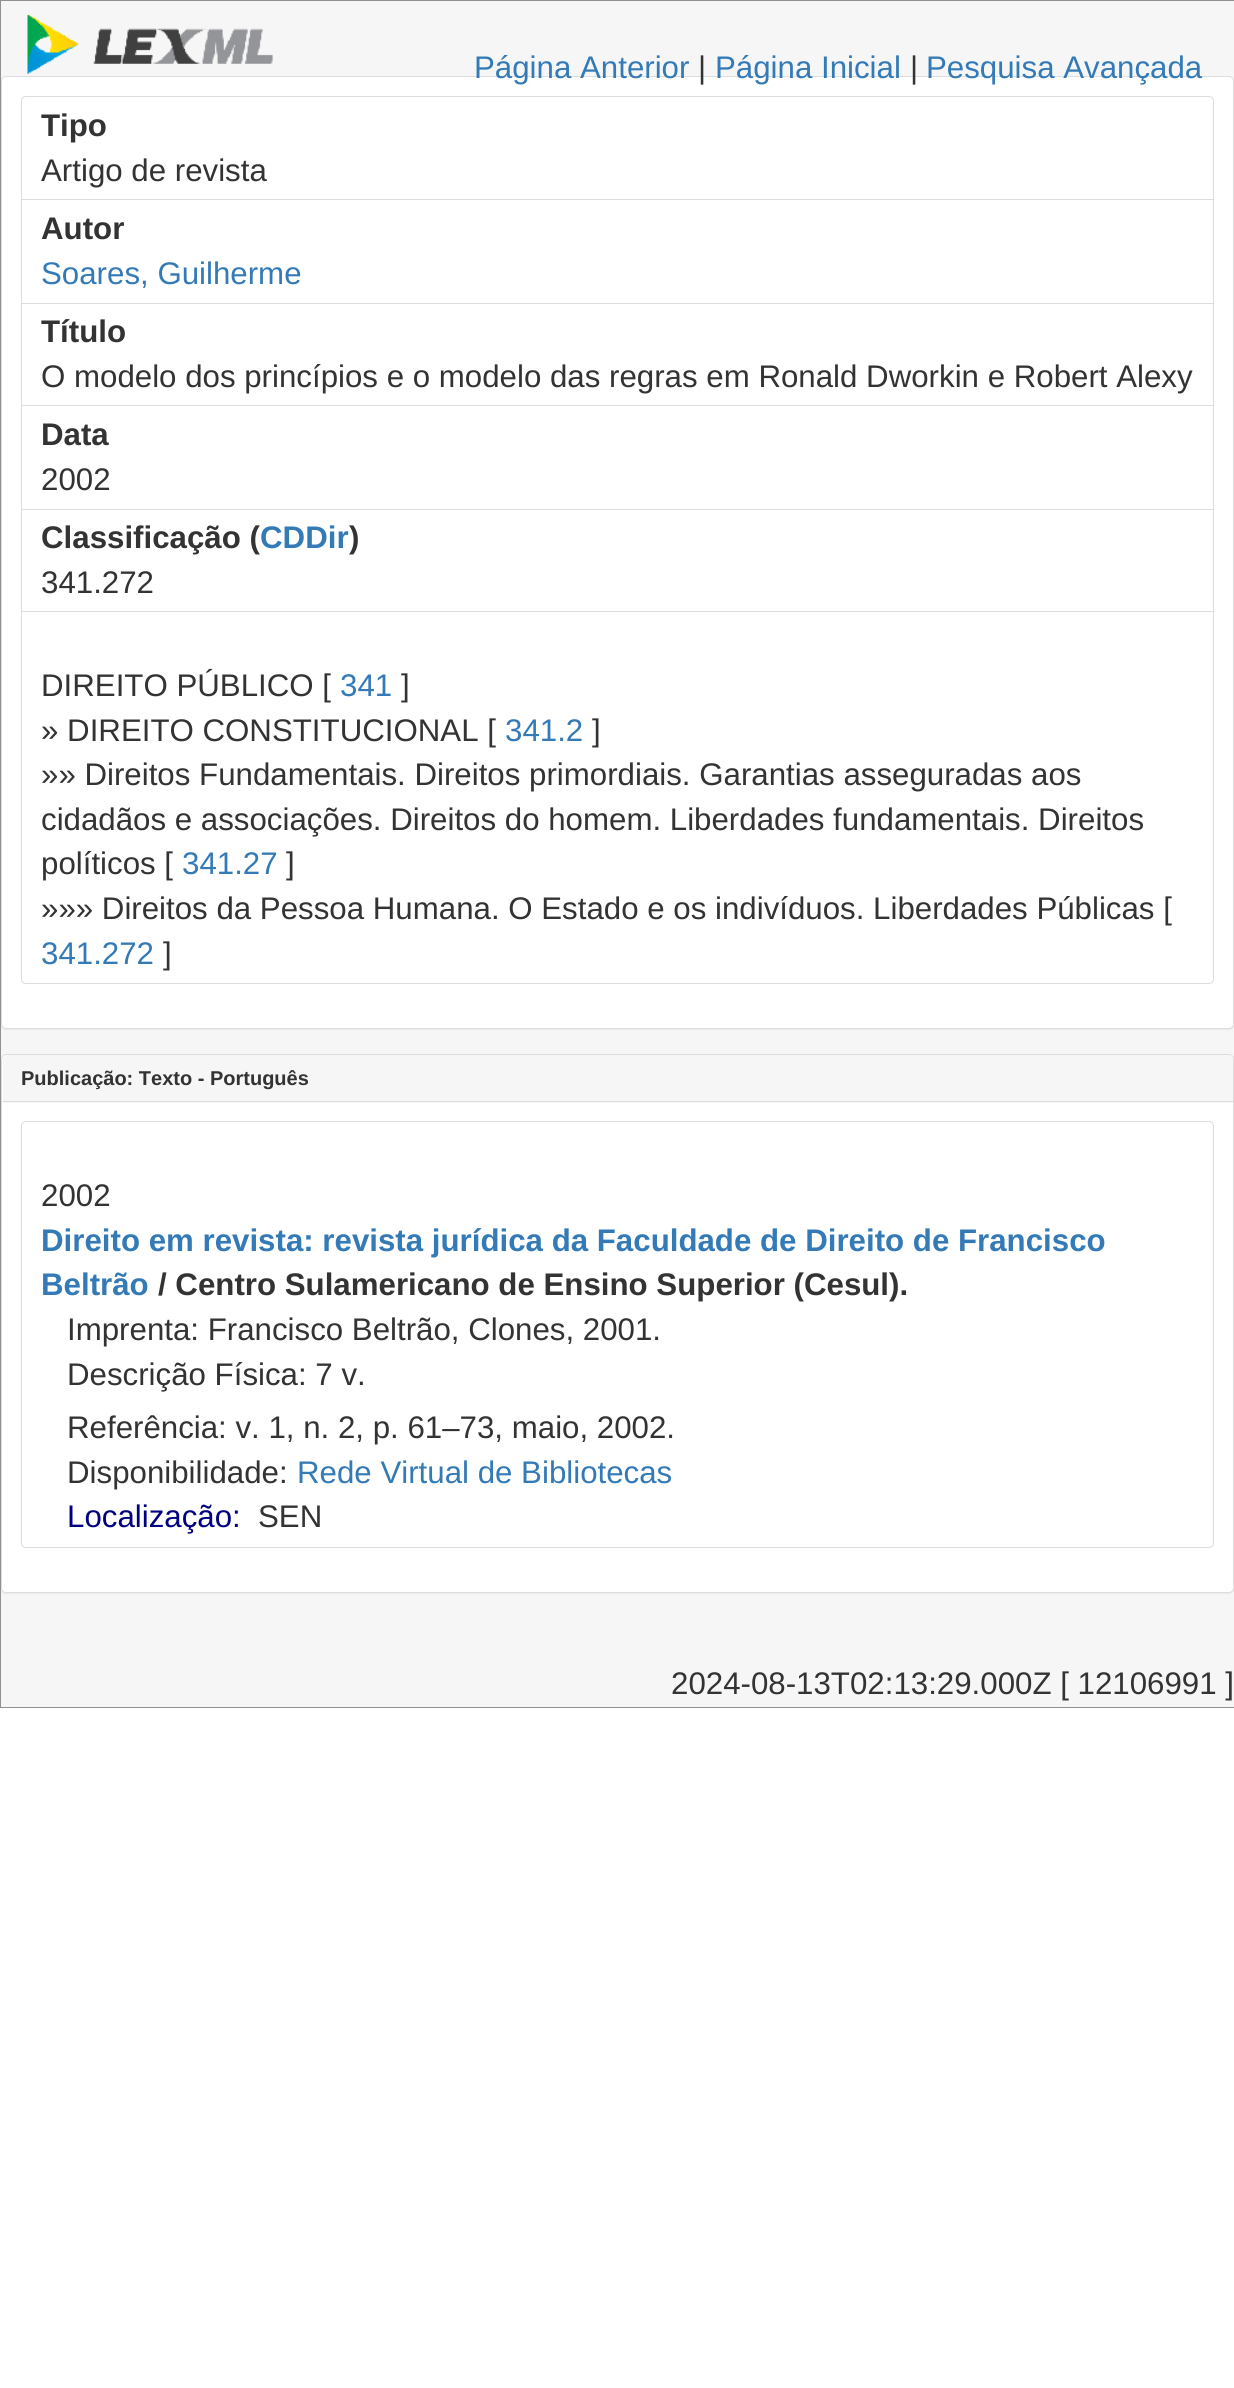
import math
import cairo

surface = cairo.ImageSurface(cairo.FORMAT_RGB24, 1234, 2388)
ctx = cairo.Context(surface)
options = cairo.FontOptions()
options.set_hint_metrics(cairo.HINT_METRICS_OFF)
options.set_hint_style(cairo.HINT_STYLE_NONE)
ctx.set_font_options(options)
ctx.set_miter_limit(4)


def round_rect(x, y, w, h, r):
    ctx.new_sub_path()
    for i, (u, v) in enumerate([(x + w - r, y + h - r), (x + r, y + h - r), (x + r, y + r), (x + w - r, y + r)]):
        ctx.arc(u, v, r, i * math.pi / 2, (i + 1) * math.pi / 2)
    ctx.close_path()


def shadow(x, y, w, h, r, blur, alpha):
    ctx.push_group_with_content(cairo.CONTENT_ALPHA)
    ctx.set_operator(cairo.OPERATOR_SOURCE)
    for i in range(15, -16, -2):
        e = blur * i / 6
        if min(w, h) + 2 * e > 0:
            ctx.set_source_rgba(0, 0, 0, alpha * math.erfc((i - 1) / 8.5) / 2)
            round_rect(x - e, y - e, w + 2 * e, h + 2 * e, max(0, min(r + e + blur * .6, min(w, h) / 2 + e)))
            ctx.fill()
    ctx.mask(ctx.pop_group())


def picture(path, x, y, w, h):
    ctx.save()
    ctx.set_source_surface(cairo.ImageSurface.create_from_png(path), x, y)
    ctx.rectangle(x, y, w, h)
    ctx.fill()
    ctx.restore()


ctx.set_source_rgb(1, 1, 1)
ctx.paint()
ctx.set_source_rgb(0.961, 0.961, 0.961)
ctx.rectangle(0.5, 0.5, 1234, 1707)
ctx.fill_preserve()
ctx.set_source_rgb(0.565, 0.565, 0.565)
ctx.set_line_width(1)
ctx.stroke()
picture("img1.png", 27, 13, 246, 61)
ctx.set_source_rgb(0, 0, 0)
shadow(1, 78, 1233, 952, 5, 0.5, 0.05)
ctx.set_source_rgb(1, 1, 1)
round_rect(1.5, 76.5, 1232, 952, 4.5)
ctx.fill_preserve()
ctx.set_source_rgb(0.867, 0.867, 0.867)
ctx.stroke()
ctx.select_font_face("Liberation Sans")
ctx.set_font_size(31.25)
ctx.set_source_rgb(0.2, 0.478, 0.718)
ctx.move_to(474, 78)
ctx.show_text("Página Anterior")
ctx.set_source_rgb(0.2, 0.2, 0.2)
ctx.move_to(698, 78)
ctx.show_text("|")
ctx.set_source_rgb(0.2, 0.478, 0.718)
ctx.move_to(715, 78)
ctx.show_text("Página Inicial")
ctx.set_source_rgb(0.2, 0.2, 0.2)
ctx.move_to(910, 78)
ctx.show_text("|")
ctx.set_source_rgb(0.2, 0.478, 0.718)
ctx.move_to(926, 78)
ctx.show_text("Pesquisa Avançada")
ctx.new_path()
ctx.move_to(26, 96.5)
ctx.line_to(1209, 96.5)
ctx.curve_to(1211.5, 96.5, 1213.5, 98.5, 1213.5, 101)
ctx.line_to(1213.5, 199.5)
ctx.line_to(21.5, 199.5)
ctx.line_to(21.5, 101)
ctx.curve_to(21.5, 98.5, 23.5, 96.5, 26, 96.5)
ctx.close_path()
ctx.set_source_rgb(0.867, 0.867, 0.867)
ctx.stroke()
ctx.select_font_face("Liberation Sans", cairo.FONT_SLANT_NORMAL, cairo.FONT_WEIGHT_BOLD)
ctx.set_source_rgb(0.2, 0.2, 0.2)
ctx.move_to(41, 136)
ctx.show_text("Tipo")
ctx.select_font_face("Liberation Sans")
ctx.move_to(41, 181)
ctx.show_text("Artigo de revista")
ctx.rectangle(21.5, 199.5, 1192, 104)
ctx.set_source_rgb(0.867, 0.867, 0.867)
ctx.stroke()
ctx.select_font_face("Liberation Sans", cairo.FONT_SLANT_NORMAL, cairo.FONT_WEIGHT_BOLD)
ctx.set_source_rgb(0.2, 0.2, 0.2)
ctx.move_to(41, 239)
ctx.show_text("Autor")
ctx.select_font_face("Liberation Sans")
ctx.set_source_rgb(0.2, 0.478, 0.718)
ctx.move_to(41, 284)
ctx.show_text("Soares, Guilherme")
ctx.rectangle(21.5, 303.5, 1192, 102)
ctx.set_source_rgb(0.867, 0.867, 0.867)
ctx.stroke()
ctx.select_font_face("Liberation Sans", cairo.FONT_SLANT_NORMAL, cairo.FONT_WEIGHT_BOLD)
ctx.set_source_rgb(0.2, 0.2, 0.2)
ctx.move_to(41, 342)
ctx.show_text("Título")
ctx.select_font_face("Liberation Sans")
ctx.move_to(41, 387)
ctx.show_text("O modelo dos princípios e o modelo das regras em Ronald Dworkin e Robert Alexy")
ctx.rectangle(21.5, 405.5, 1192, 104)
ctx.set_source_rgb(0.867, 0.867, 0.867)
ctx.stroke()
ctx.select_font_face("Liberation Sans", cairo.FONT_SLANT_NORMAL, cairo.FONT_WEIGHT_BOLD)
ctx.set_source_rgb(0.2, 0.2, 0.2)
ctx.move_to(41, 445)
ctx.show_text("Data")
ctx.select_font_face("Liberation Sans")
ctx.move_to(41, 490)
ctx.show_text("2002")
ctx.rectangle(21.5, 509.5, 1192, 103)
ctx.set_source_rgb(0.867, 0.867, 0.867)
ctx.stroke()
ctx.select_font_face("Liberation Sans", cairo.FONT_SLANT_NORMAL, cairo.FONT_WEIGHT_BOLD)
ctx.set_source_rgb(0.2, 0.2, 0.2)
ctx.move_to(41, 548)
ctx.show_text("Classificação (")
ctx.set_source_rgb(0.2, 0.478, 0.718)
ctx.move_to(260, 548)
ctx.show_text("CDDir")
ctx.set_source_rgb(0.2, 0.2, 0.2)
ctx.move_to(349, 548)
ctx.show_text(")")
ctx.select_font_face("Liberation Sans")
ctx.move_to(41, 593)
ctx.show_text("341.272")
ctx.set_source_rgb(1, 1, 1)
ctx.new_path()
ctx.move_to(21.5, 611.5)
ctx.line_to(1213.5, 611.5)
ctx.line_to(1213.5, 979)
ctx.curve_to(1213.5, 981.5, 1211.5, 983.5, 1209, 983.5)
ctx.line_to(26, 983.5)
ctx.curve_to(23.5, 983.5, 21.5, 981.5, 21.5, 979)
ctx.close_path()
ctx.fill_preserve()
ctx.set_source_rgb(0.867, 0.867, 0.867)
ctx.stroke()
ctx.set_source_rgb(0.2, 0.2, 0.2)
ctx.move_to(41, 696)
ctx.show_text("DIREITO PÚBLICO [")
ctx.set_source_rgb(0.2, 0.478, 0.718)
ctx.move_to(340, 696)
ctx.show_text("341")
ctx.set_source_rgb(0.2, 0.2, 0.2)
ctx.move_to(401, 696)
ctx.show_text("]")
ctx.move_to(41, 741)
ctx.show_text("» DIREITO CONSTITUCIONAL [")
ctx.set_source_rgb(0.2, 0.478, 0.718)
ctx.move_to(505, 741)
ctx.show_text("341.2")
ctx.set_source_rgb(0.2, 0.2, 0.2)
ctx.move_to(592, 741)
ctx.show_text("]")
ctx.move_to(41, 785)
ctx.show_text("»» Direitos Fundamentais. Direitos primordiais. Garantias asseguradas aos")
ctx.move_to(41, 830)
ctx.show_text("cidadãos e associações. Direitos do homem. Liberdades fundamentais. Direitos")
ctx.move_to(41, 874)
ctx.show_text("políticos [")
ctx.set_source_rgb(0.2, 0.478, 0.718)
ctx.move_to(182, 874)
ctx.show_text("341.27")
ctx.set_source_rgb(0.2, 0.2, 0.2)
ctx.move_to(286, 874)
ctx.show_text("]")
ctx.move_to(41, 919)
ctx.show_text("»»» Direitos da Pessoa Humana. O Estado e os indivíduos. Liberdades Públicas [")
ctx.set_source_rgb(0.2, 0.478, 0.718)
ctx.move_to(41, 964)
ctx.show_text("341.272")
ctx.set_source_rgb(0.2, 0.2, 0.2)
ctx.move_to(163, 964)
ctx.show_text("]")
ctx.set_source_rgb(0, 0, 0)
shadow(1, 1055, 1233, 539, 5, 0.5, 0.05)
ctx.set_source_rgb(1, 1, 1)
round_rect(1.5, 1054.5, 1232, 538, 4.5)
ctx.fill_preserve()
ctx.set_source_rgb(0.867, 0.867, 0.867)
ctx.stroke()
ctx.set_source_rgb(0.961, 0.961, 0.961)
ctx.new_path()
ctx.move_to(7, 1055)
ctx.line_to(1229, 1055)
ctx.curve_to(1231, 1055, 1233, 1057, 1233, 1059)
ctx.line_to(1233, 1103)
ctx.line_to(3, 1103)
ctx.line_to(3, 1059)
ctx.curve_to(3, 1057, 5, 1055, 7, 1055)
ctx.close_path()
ctx.fill()
ctx.set_source_rgb(0.867, 0.867, 0.867)
ctx.rectangle(3, 1101, 1230, 1)
ctx.fill()
ctx.select_font_face("Liberation Sans", cairo.FONT_SLANT_NORMAL, cairo.FONT_WEIGHT_BOLD)
ctx.set_font_size(20)
ctx.set_source_rgb(0.2, 0.2, 0.2)
ctx.move_to(21, 1085)
ctx.show_text("Publicação: Texto - Português")
round_rect(21.5, 1121.5, 1192, 426, 4.5)
ctx.set_source_rgb(0.867, 0.867, 0.867)
ctx.stroke()
ctx.select_font_face("Liberation Sans")
ctx.set_font_size(31.25)
ctx.set_source_rgb(0.2, 0.2, 0.2)
ctx.move_to(41, 1206)
ctx.show_text("2002")
ctx.select_font_face("Liberation Sans", cairo.FONT_SLANT_NORMAL, cairo.FONT_WEIGHT_BOLD)
ctx.set_source_rgb(0.2, 0.478, 0.718)
ctx.move_to(41, 1251)
ctx.show_text("Direito em revista: revista jurídica da Faculdade de Direito de Francisco")
ctx.move_to(41, 1295)
ctx.show_text("Beltrão")
ctx.set_source_rgb(0.2, 0.2, 0.2)
ctx.move_to(158, 1295)
ctx.show_text("/ Centro Sulamericano de Ensino Superior (Cesul).")
ctx.select_font_face("Liberation Sans")
ctx.move_to(67, 1340)
ctx.show_text("Imprenta: Francisco Beltrão, Clones, 2001.")
ctx.move_to(67, 1385)
ctx.show_text("Descrição Física: 7 v.")
ctx.move_to(67, 1438)
ctx.show_text("Referência: v. 1, n. 2, p. 61–73, maio, 2002.")
ctx.move_to(67, 1483)
ctx.show_text("Disponibilidade:")
ctx.set_source_rgb(0.2, 0.478, 0.718)
ctx.move_to(297, 1483)
ctx.show_text("Rede Virtual de Bibliotecas")
ctx.set_source_rgb(0, 0, 0.502)
ctx.move_to(67, 1527)
ctx.show_text("Localização:")
ctx.set_source_rgb(0.2, 0.2, 0.2)
ctx.move_to(258, 1527)
ctx.show_text("SEN")
ctx.move_to(671, 1694)
ctx.show_text("2024-08-13T02:13:29.000Z [ 12106991 ]")
surface.write_to_png("page.png")
